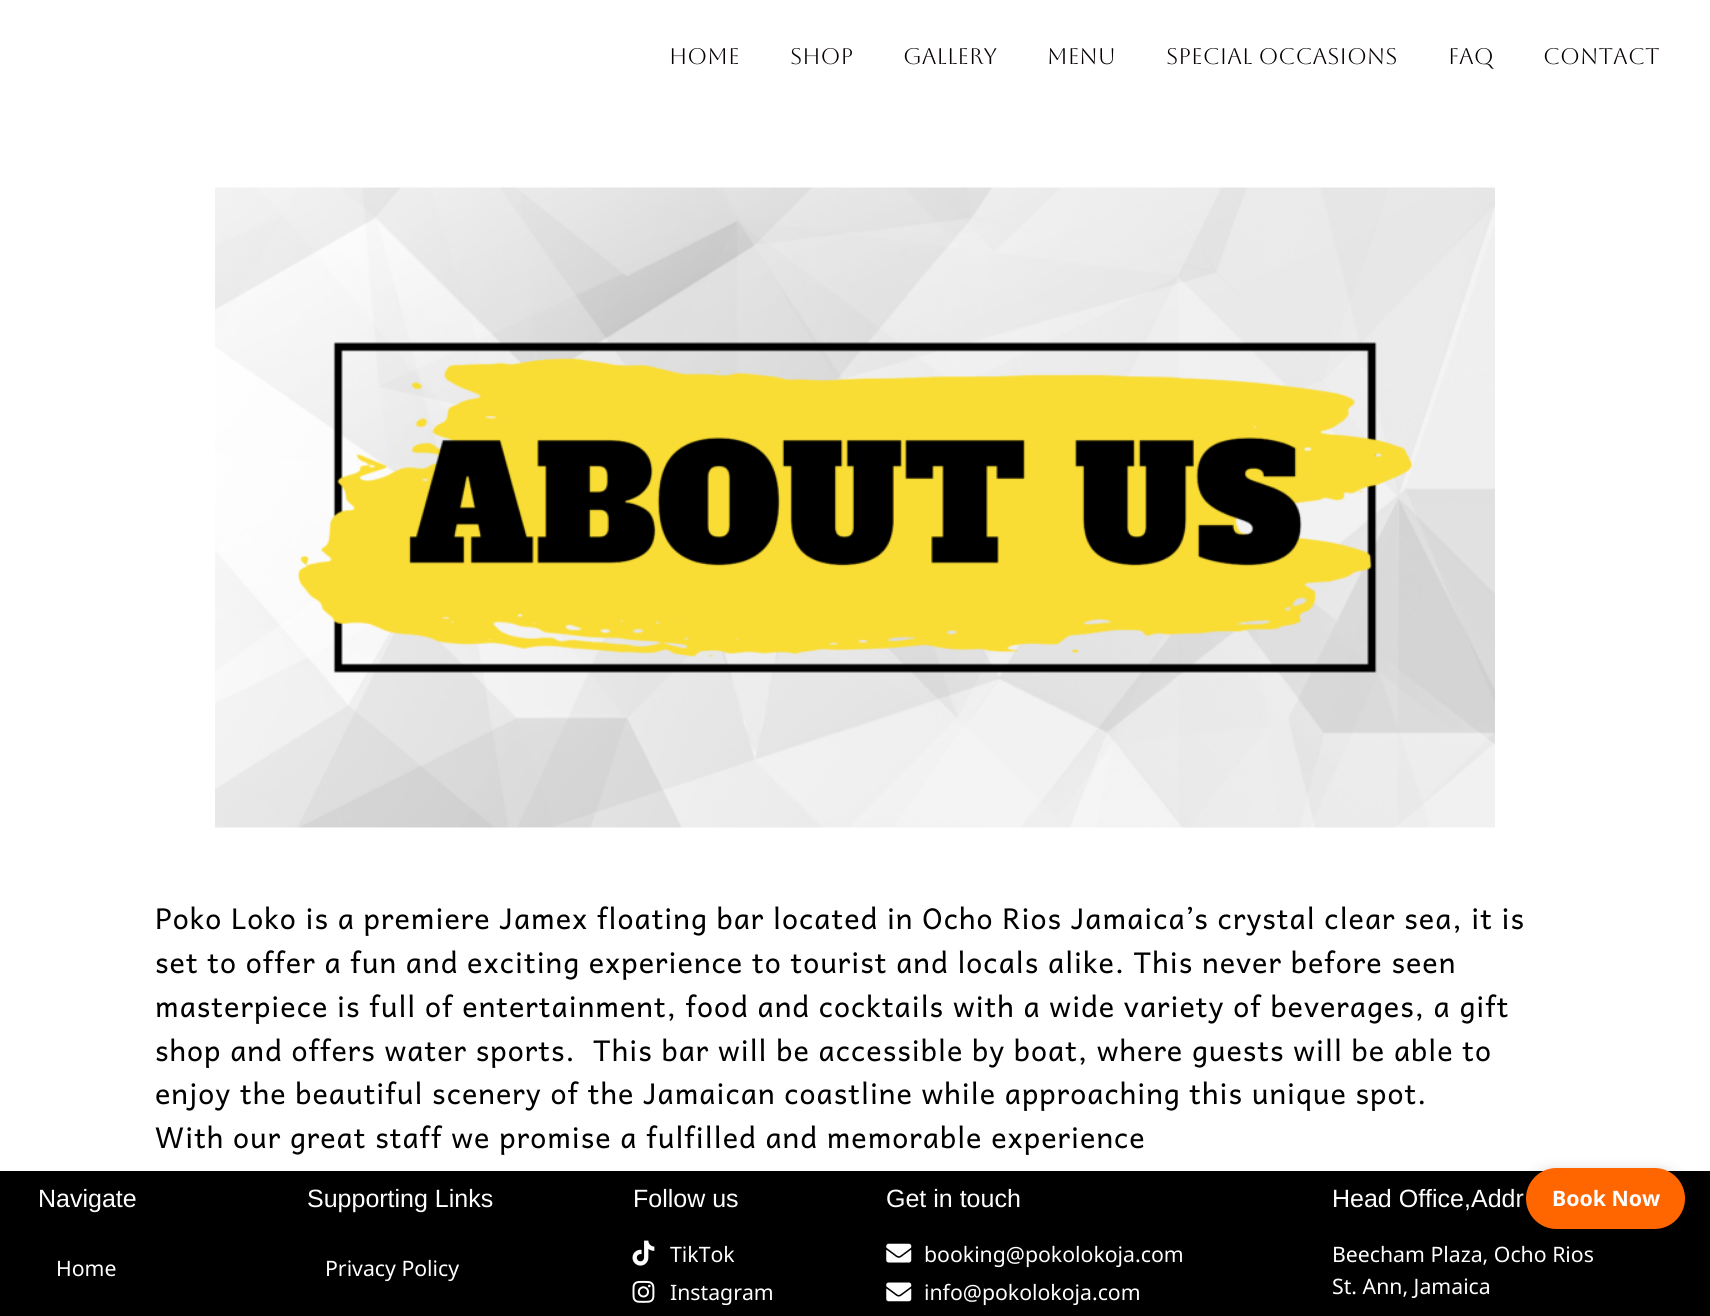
import math
import cairo

surface = cairo.ImageSurface(cairo.FORMAT_RGB24, 1710, 1316)
ctx = cairo.Context(surface)
options = cairo.FontOptions()
options.set_hint_metrics(cairo.HINT_METRICS_OFF)
options.set_hint_style(cairo.HINT_STYLE_NONE)
ctx.set_font_options(options)
ctx.set_miter_limit(4)


def spaced_text(x, y, s, letter, word):
    ctx.move_to(x, y)
    for ch in s:
        ctx.show_text(ch)
        ctx.rel_move_to(letter + word * (ch == ' '), 0)


def round_rect(x, y, w, h, r):
    ctx.new_sub_path()
    for i, (u, v) in enumerate([(x + w - r, y + h - r), (x + r, y + h - r), (x + r, y + r), (x + w - r, y + r)]):
        ctx.arc(u, v, r, i * math.pi / 2, (i + 1) * math.pi / 2)
    ctx.close_path()


def shadow(x, y, w, h, r, blur, alpha):
    ctx.push_group_with_content(cairo.CONTENT_ALPHA)
    ctx.set_operator(cairo.OPERATOR_SOURCE)
    for i in range(15, -16, -2):
        e = blur * i / 6
        if min(w, h) + 2 * e > 0:
            ctx.set_source_rgba(0, 0, 0, alpha * math.erfc((i - 1) / 8.5) / 2)
            round_rect(x - e, y - e, w + 2 * e, h + 2 * e, max(0, min(r + e + blur * .6, min(w, h) / 2 + e)))
            ctx.fill()
    ctx.mask(ctx.pop_group())


def picture(path, x, y, w, h):
    ctx.save()
    ctx.set_source_surface(cairo.ImageSurface.create_from_png(path), x, y)
    ctx.rectangle(x, y, w, h)
    ctx.fill()
    ctx.restore()


ctx.set_source_rgb(1, 1, 1)
ctx.paint()
ctx.select_font_face("Aboreto")
ctx.set_font_size(22.5)
ctx.set_source_rgb(0.027, 0, 0)
ctx.move_to(669, 64)
ctx.show_text("HOME")
ctx.move_to(790, 64)
ctx.show_text("SHOP")
ctx.move_to(903, 64)
ctx.show_text("GALLERY")
ctx.move_to(1047, 64)
ctx.show_text("MENU")
ctx.move_to(1166, 64)
ctx.show_text("SPECIAL OCCASIONS")
ctx.move_to(1448, 64)
ctx.show_text("FAQ")
ctx.move_to(1543, 64)
ctx.show_text("CONTACT")
picture("img1.png", 215, 187, 1280, 641)
ctx.select_font_face("Andika")
ctx.set_font_size(28.75)
ctx.set_source_rgb(0, 0, 0)
spaced_text(155, 929, "Poko Loko is a premiere Jamex floating bar located in Ocho Rios Jamaica’s crystal clear sea, it is", 1, 0)
spaced_text(155, 973, "set to offer a fun and exciting experience to tourist and locals alike. This never before seen", 1, 0)
spaced_text(155, 1017, "masterpiece is full of entertainment, food and cocktails with a wide variety of beverages, a gift", 1, 0)
spaced_text(155, 1061, "shop and offers water sports.  This bar will be accessible by boat, where guests will be able to", 1, 0)
spaced_text(155, 1104, "enjoy the beautiful scenery of the Jamaican coastline while approaching this unique spot.", 1, 0)
spaced_text(155, 1148, "With our great staff we promise a fulfilled and memorable experience", 1, 0)
ctx.rectangle(0, 1171, 1710, 145)
ctx.fill()
ctx.select_font_face("Liberation Sans")
ctx.set_font_size(25)
ctx.set_source_rgb(1, 1, 1)
ctx.move_to(38, 1207)
ctx.show_text("Navigate")
ctx.select_font_face("Noto Sans")
ctx.set_font_size(21.25)
ctx.move_to(56, 1276)
ctx.show_text("Home")
ctx.select_font_face("Liberation Sans")
ctx.set_font_size(25)
ctx.move_to(307, 1207)
ctx.show_text("Supporting Links")
ctx.select_font_face("Noto Sans")
ctx.set_font_size(21.25)
ctx.move_to(325, 1276)
ctx.show_text("Privacy Policy")
ctx.select_font_face("Liberation Sans")
ctx.set_font_size(25)
ctx.move_to(633, 1207)
ctx.show_text("Follow us")
picture("img2.png", 632, 1240, 23, 26)
ctx.select_font_face("Noto Sans")
ctx.set_font_size(21.25)
ctx.move_to(670, 1262)
ctx.show_text("TikTok")
picture("img3.png", 632, 1280, 23, 23)
ctx.move_to(670, 1300)
ctx.show_text("Instagram")
ctx.select_font_face("Liberation Sans")
ctx.set_font_size(25)
ctx.move_to(886, 1207)
ctx.show_text("Get in touch")
picture("img4.png", 886, 1243, 26, 20)
ctx.select_font_face("Noto Sans")
ctx.set_font_size(21.25)
ctx.move_to(924, 1262)
ctx.show_text("booking@pokolokoja.com")
picture("img5.png", 886, 1282, 26, 20)
ctx.move_to(924, 1300)
ctx.show_text("info@pokolokoja.com")
ctx.select_font_face("Liberation Sans")
ctx.set_font_size(25)
ctx.move_to(1332, 1207)
ctx.show_text("Head Office,Addr")
ctx.select_font_face("Noto Sans")
ctx.set_font_size(21.25)
ctx.move_to(1332, 1262)
ctx.show_text("Beecham Plaza, Ocho Rios")
ctx.move_to(1332, 1294)
ctx.show_text("St. Ann, Jamaica")
ctx.set_source_rgb(0, 0, 0)
shadow(1526, 1173, 159, 61, 30.5, 7.5, 0.25)
ctx.set_source_rgb(1, 0.4, 0)
round_rect(1526, 1168, 159, 61, 30.5)
ctx.fill()
ctx.select_font_face("Noto Sans", cairo.FONT_SLANT_NORMAL, cairo.FONT_WEIGHT_BOLD)
ctx.set_source_rgb(1, 1, 1)
ctx.move_to(1552, 1206)
ctx.show_text("Book Now")
surface.write_to_png("page.png")
